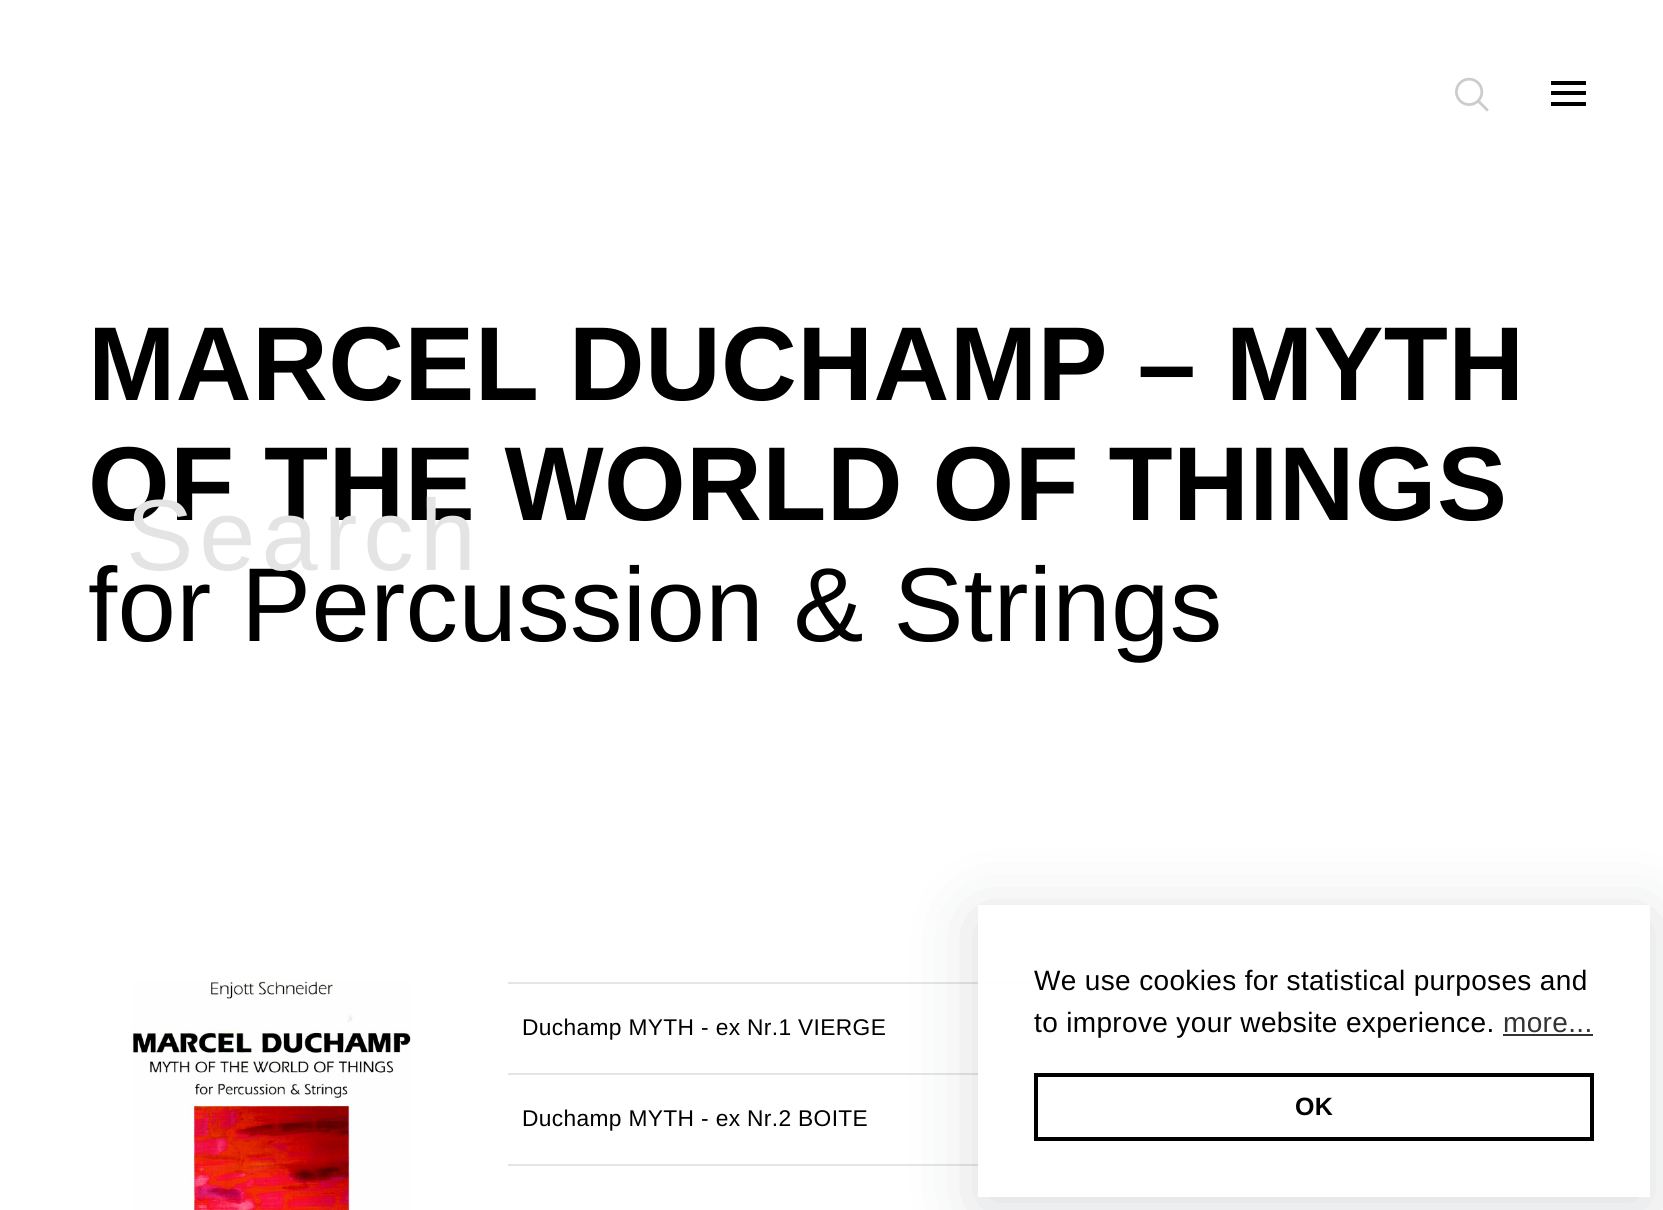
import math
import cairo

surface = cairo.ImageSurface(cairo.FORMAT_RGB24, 1663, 1210)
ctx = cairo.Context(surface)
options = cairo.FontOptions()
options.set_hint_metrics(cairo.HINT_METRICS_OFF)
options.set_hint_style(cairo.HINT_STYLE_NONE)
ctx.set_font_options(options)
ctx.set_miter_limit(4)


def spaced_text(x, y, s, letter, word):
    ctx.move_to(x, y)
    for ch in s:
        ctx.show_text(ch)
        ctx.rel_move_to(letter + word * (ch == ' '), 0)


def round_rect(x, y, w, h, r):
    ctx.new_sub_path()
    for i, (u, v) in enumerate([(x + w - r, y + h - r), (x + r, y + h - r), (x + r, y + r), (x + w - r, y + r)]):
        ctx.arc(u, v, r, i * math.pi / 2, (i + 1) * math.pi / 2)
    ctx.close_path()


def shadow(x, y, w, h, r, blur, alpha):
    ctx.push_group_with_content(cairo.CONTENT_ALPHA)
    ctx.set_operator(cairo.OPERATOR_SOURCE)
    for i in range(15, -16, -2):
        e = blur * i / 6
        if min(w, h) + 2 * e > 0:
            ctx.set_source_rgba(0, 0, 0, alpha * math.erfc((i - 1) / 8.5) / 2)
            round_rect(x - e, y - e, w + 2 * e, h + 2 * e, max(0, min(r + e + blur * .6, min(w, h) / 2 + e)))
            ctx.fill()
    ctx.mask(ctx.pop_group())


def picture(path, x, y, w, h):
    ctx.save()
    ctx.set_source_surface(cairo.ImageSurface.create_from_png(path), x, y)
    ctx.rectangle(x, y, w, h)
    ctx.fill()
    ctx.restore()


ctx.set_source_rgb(1, 1, 1)
ctx.paint()
picture("img1.png", 1455, 77, 34, 35)
ctx.set_source_rgb(0, 0, 0)
ctx.rectangle(1551, 81, 35, 4)
ctx.fill()
ctx.rectangle(1551, 91, 35, 4)
ctx.fill()
ctx.rectangle(1551, 102, 35, 4)
ctx.fill()
ctx.select_font_face("Liberation Sans", cairo.FONT_SLANT_NORMAL, cairo.FONT_WEIGHT_BOLD)
ctx.set_font_size(105)
spaced_text(88, 400, "MARCEL DUCHAMP – MYTH", 0.35, 0)
spaced_text(88, 520, "OF THE WORLD OF THINGS", 0.35, 0)
ctx.select_font_face("Liberation Sans")
spaced_text(88, 641, "for Percussion & Strings", 0.35, 0)
picture("img2.png", 132, 980, 279, 230)
ctx.set_source_rgb(0.898, 0.898, 0.898)
ctx.rectangle(508, 982, 1069, 2)
ctx.fill()
ctx.rectangle(508, 1073, 526, 2)
ctx.fill()
ctx.set_font_size(22.75)
ctx.set_source_rgb(0, 0, 0)
spaced_text(522, 1035, "Duchamp MYTH - ex Nr.1 VIERGE", 0.35, 0)
ctx.set_source_rgb(0.898, 0.898, 0.898)
ctx.rectangle(508, 1164, 1069, 2)
ctx.fill()
ctx.set_source_rgb(0, 0, 0)
spaced_text(522, 1126, "Duchamp MYTH - ex Nr.2 BOITE", 0.35, 0)
ctx.set_font_size(101)
ctx.set_source_rgb(0.894, 0.894, 0.894)
spaced_text(126, 570, "Search", 6, 0)
ctx.save()
ctx.set_fill_rule(cairo.FILL_RULE_EVEN_ODD)
ctx.new_path()
ctx.move_to(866, 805)
ctx.line_to(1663, 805)
ctx.line_to(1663, 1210)
ctx.line_to(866, 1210)
ctx.close_path()
ctx.move_to(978, 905)
ctx.line_to(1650, 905)
ctx.line_to(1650, 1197)
ctx.line_to(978, 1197)
ctx.close_path()
ctx.clip()
ctx.set_source_rgb(0.078, 0.102, 0.157)
shadow(978, 917, 672, 292, 0, 37, 0.15)
ctx.restore()
ctx.set_source_rgba(1, 1, 1, 0.95)
ctx.rectangle(978, 929, 599, 268)
ctx.fill()
ctx.set_font_size(28)
ctx.set_source_rgb(0, 0, 0)
spaced_text(1034, 990, "We use cookies for statistical purposes and", 0.35, 0)
spaced_text(1034, 1032, "to improve your website experience.", 0.35, 0)
ctx.set_source_rgb(0.2, 0.2, 0.2)
spaced_text(1503, 1032, "more...", 0.35, 0)
ctx.rectangle(1503, 1034, 90, 2)
ctx.fill()
ctx.rectangle(1036, 1075, 556, 64)
ctx.set_source_rgb(0, 0, 0)
ctx.set_line_width(4)
ctx.stroke()
ctx.select_font_face("Liberation Sans", cairo.FONT_SLANT_NORMAL, cairo.FONT_WEIGHT_BOLD)
ctx.set_font_size(25)
spaced_text(1295, 1115, "OK", 0.35, 0)
surface.write_to_png("page.png")
